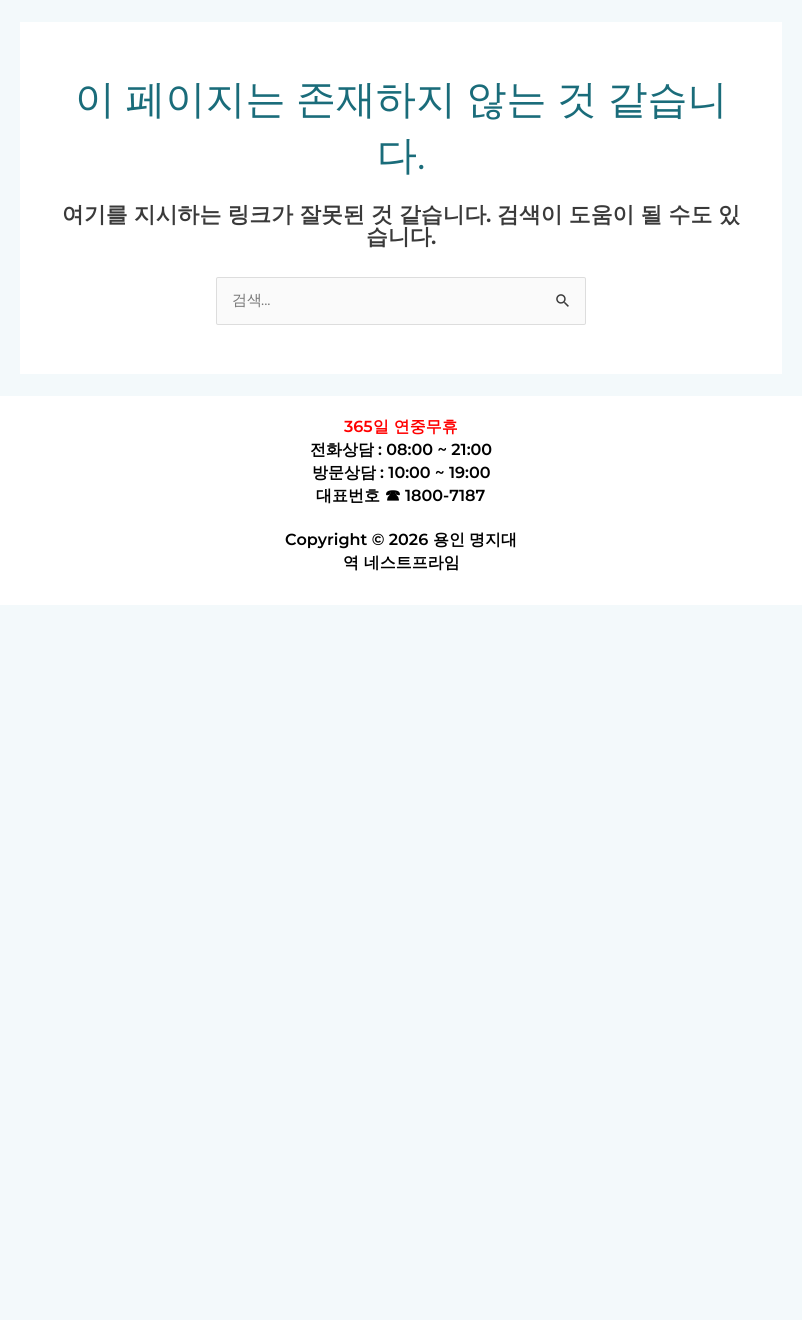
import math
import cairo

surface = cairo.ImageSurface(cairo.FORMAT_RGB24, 802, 1320)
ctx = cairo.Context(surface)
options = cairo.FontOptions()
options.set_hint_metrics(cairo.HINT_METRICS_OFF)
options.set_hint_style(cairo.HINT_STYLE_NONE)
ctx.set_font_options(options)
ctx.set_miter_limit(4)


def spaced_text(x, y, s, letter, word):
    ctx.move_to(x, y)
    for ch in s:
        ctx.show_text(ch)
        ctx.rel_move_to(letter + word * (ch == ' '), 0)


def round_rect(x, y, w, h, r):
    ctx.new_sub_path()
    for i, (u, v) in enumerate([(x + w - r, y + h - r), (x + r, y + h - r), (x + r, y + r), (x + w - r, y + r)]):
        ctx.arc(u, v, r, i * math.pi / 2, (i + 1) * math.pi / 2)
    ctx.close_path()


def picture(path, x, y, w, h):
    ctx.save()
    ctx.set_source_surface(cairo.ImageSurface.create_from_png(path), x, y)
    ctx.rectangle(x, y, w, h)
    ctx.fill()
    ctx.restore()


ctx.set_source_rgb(0.953, 0.976, 0.984)
ctx.paint()
ctx.set_source_rgb(1, 1, 1)
ctx.rectangle(20, 22, 762, 352)
ctx.fill()
ctx.select_font_face("WenQuanYi Zen Hei Medium")
ctx.set_font_size(40)
ctx.set_source_rgb(0.102, 0.424, 0.478)
spaced_text(75, 113, "이 페이지는 존재하지 않는 것 같습니", 0, -1.5)
ctx.move_to(377, 169)
ctx.show_text("다")
ctx.select_font_face("Montserrat")
ctx.move_to(417, 169)
ctx.show_text(".")
ctx.select_font_face("WenQuanYi Zen Hei", cairo.FONT_SLANT_NORMAL, cairo.FONT_WEIGHT_BOLD)
ctx.set_font_size(21.9)
ctx.set_source_rgb(0.227, 0.227, 0.227)
spaced_text(62, 222, "여기를 지시하는 링크가 잘못된 것 같습니다", 0, -0.5)
ctx.select_font_face("Montserrat SemiBold")
ctx.move_to(486, 222)
ctx.show_text(".")
ctx.select_font_face("WenQuanYi Zen Hei", cairo.FONT_SLANT_NORMAL, cairo.FONT_WEIGHT_BOLD)
spaced_text(497, 222, "검색이 도움이 될 수도 있", 0, -0.5)
ctx.move_to(366, 244)
ctx.show_text("습니다")
ctx.select_font_face("Montserrat SemiBold")
ctx.move_to(431, 244)
ctx.show_text(".")
ctx.set_source_rgb(0.98, 0.98, 0.98)
round_rect(216.5, 277.5, 369, 47, 1.5)
ctx.fill_preserve()
ctx.set_source_rgb(0.867, 0.867, 0.867)
ctx.set_line_width(1)
ctx.stroke()
ctx.select_font_face("WenQuanYi Zen Hei Medium")
ctx.set_font_size(15)
ctx.set_source_rgb(0.459, 0.459, 0.459)
ctx.move_to(232, 305)
ctx.show_text("검색")
ctx.select_font_face("Montserrat")
ctx.move_to(261, 305)
ctx.show_text("...")
picture("img1.png", 556, 294, 13, 13)
ctx.set_source_rgb(1, 1, 1)
ctx.rectangle(0, 396, 802, 209)
ctx.fill()
ctx.select_font_face("Montserrat SemiBold")
ctx.set_font_size(16)
ctx.set_source_rgb(1, 0, 0)
ctx.move_to(344, 432)
ctx.show_text("365")
ctx.select_font_face("WenQuanYi Zen Hei", cairo.FONT_SLANT_NORMAL, cairo.FONT_WEIGHT_BOLD)
ctx.move_to(373, 432)
ctx.show_text("일 연중무휴")
ctx.set_source_rgb(0, 0, 0)
ctx.move_to(310, 455)
ctx.show_text("전화상담")
ctx.select_font_face("Montserrat SemiBold")
ctx.move_to(378, 455)
ctx.show_text(": 08:00 ~ 21:00")
ctx.select_font_face("WenQuanYi Zen Hei", cairo.FONT_SLANT_NORMAL, cairo.FONT_WEIGHT_BOLD)
ctx.move_to(312, 478)
ctx.show_text("방문상담")
ctx.select_font_face("Montserrat SemiBold")
ctx.move_to(380, 478)
ctx.show_text(": 10:00 ~ 19:00")
ctx.select_font_face("WenQuanYi Zen Hei", cairo.FONT_SLANT_NORMAL, cairo.FONT_WEIGHT_BOLD)
ctx.move_to(316, 501)
ctx.show_text("대표번호 ☎")
ctx.select_font_face("Montserrat SemiBold")
ctx.move_to(405, 501)
ctx.show_text("1800-7187")
ctx.move_to(285, 545)
ctx.show_text("Copyright © 2026")
ctx.select_font_face("WenQuanYi Zen Hei", cairo.FONT_SLANT_NORMAL, cairo.FONT_WEIGHT_BOLD)
ctx.move_to(433, 545)
ctx.show_text("용인")
ctx.move_to(469, 545)
ctx.show_text("명지대")
ctx.move_to(343, 568)
ctx.show_text("역 네스트프라임")
surface.write_to_png("page.png")
